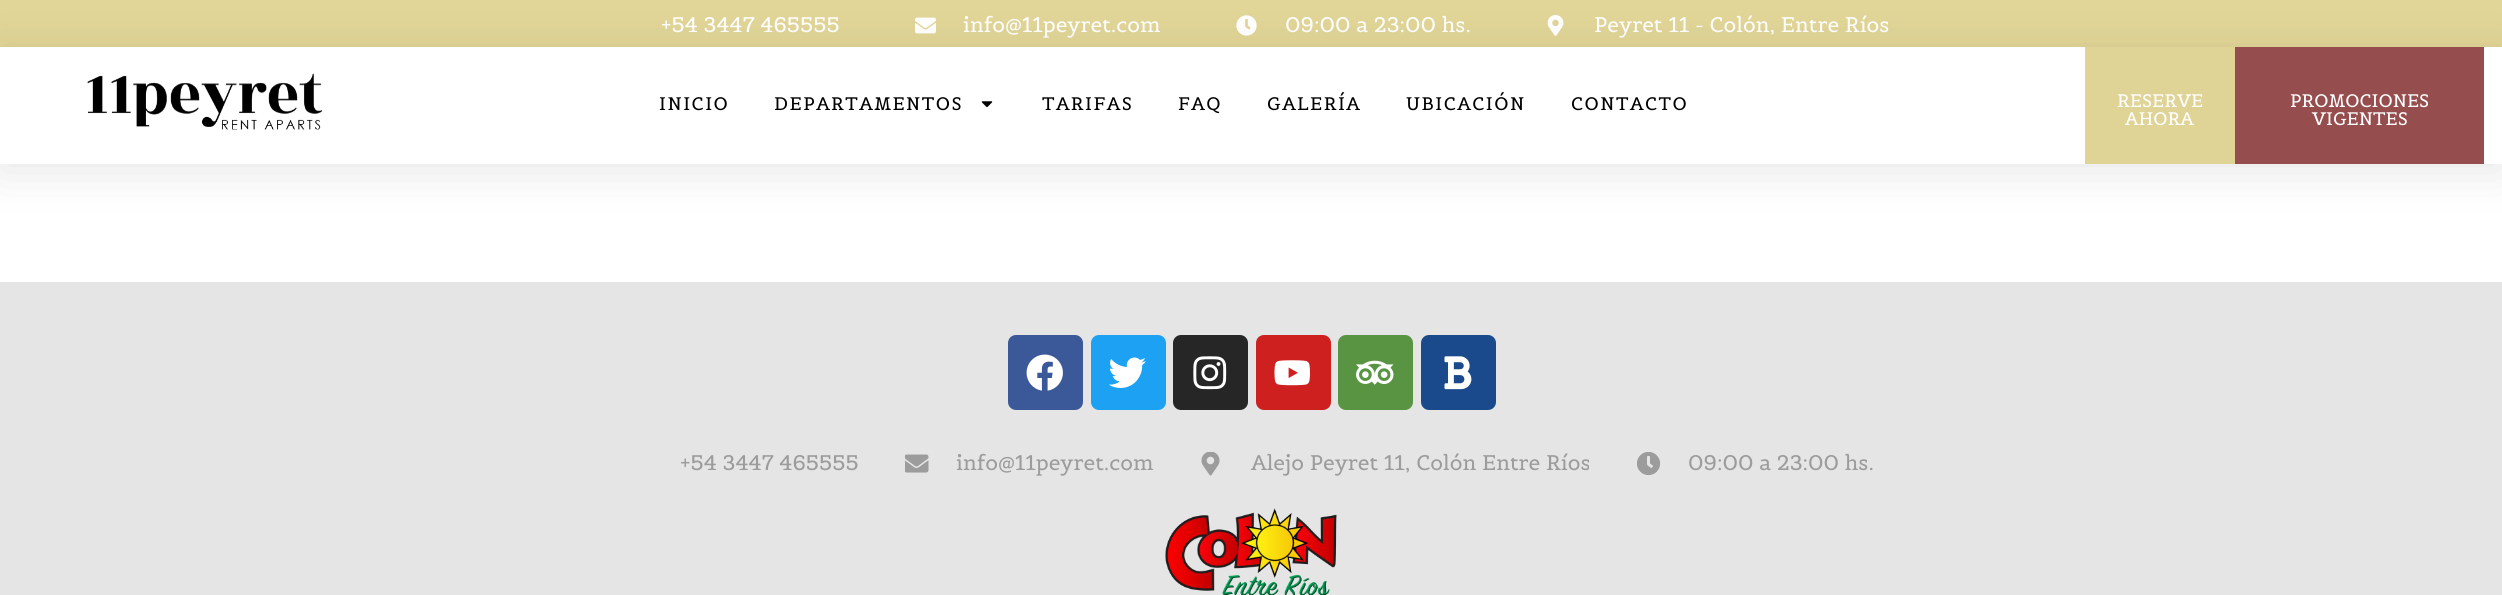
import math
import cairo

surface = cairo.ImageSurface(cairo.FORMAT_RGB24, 2502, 595)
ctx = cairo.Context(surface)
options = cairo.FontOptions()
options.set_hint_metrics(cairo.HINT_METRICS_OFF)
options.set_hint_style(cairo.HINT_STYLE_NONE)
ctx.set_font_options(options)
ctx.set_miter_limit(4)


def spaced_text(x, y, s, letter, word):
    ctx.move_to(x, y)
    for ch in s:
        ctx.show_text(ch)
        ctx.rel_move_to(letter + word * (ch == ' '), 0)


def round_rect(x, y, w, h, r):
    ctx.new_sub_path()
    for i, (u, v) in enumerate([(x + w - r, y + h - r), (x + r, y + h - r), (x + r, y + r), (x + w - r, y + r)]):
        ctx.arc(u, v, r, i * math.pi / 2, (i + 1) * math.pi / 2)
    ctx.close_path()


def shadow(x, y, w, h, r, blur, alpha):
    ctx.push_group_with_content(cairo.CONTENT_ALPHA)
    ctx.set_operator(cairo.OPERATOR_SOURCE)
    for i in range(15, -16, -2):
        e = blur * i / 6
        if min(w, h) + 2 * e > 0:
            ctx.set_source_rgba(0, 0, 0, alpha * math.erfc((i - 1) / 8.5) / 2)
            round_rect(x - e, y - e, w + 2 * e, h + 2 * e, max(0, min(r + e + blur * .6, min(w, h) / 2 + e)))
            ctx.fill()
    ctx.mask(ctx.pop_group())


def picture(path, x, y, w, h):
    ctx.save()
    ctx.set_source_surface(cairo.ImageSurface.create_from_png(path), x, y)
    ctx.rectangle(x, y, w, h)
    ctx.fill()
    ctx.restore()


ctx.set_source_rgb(1, 1, 1)
ctx.paint()
ctx.set_source_rgb(0.882, 0.835, 0.592)
ctx.rectangle(0, 0, 2502, 47)
ctx.fill()
ctx.select_font_face("Belgrano")
ctx.set_font_size(21)
ctx.set_source_rgb(1, 1, 1)
ctx.move_to(661, 32)
ctx.show_text("+54 3447 465555")
picture("img1.png", 915, 17, 21, 17)
ctx.move_to(963, 32)
ctx.show_text("info@11peyret.com")
picture("img2.png", 1236, 15, 21, 21)
ctx.move_to(1285, 32)
ctx.show_text("09:00 a 23:00 hs.")
picture("img3.png", 1547, 15, 17, 21)
ctx.move_to(1594, 32)
ctx.show_text("Peyret 11 - Colón, Entre Ríos")
ctx.set_source_rgb(0, 0, 0)
shadow(0, 54, 2502, 117, 0, 22.5, 0.1)
ctx.set_source_rgb(1, 1, 1)
ctx.rectangle(0, 47, 2502, 117)
ctx.fill()
picture("img4.png", 87, 73, 235, 57)
ctx.set_font_size(18)
ctx.set_source_rgb(0, 0, 0)
spaced_text(659, 110, "INICIO", 1.5, 0)
spaced_text(774, 110, "DEPARTAMENTOS", 1.5, 0)
picture("img5.png", 981, 101, 12, 7)
spaced_text(1042, 110, "TARIFAS", 1.5, 0)
spaced_text(1178, 110, "FAQ", 1.5, 0)
spaced_text(1267, 110, "GALERÍA", 1.5, 0)
spaced_text(1406, 110, "UBICACIÓN", 1.5, 0)
spaced_text(1571, 110, "CONTACTO", 1.5, 0)
ctx.set_source_rgb(0.875, 0.827, 0.588)
ctx.rectangle(2085, 47, 150, 117)
ctx.fill()
ctx.set_source_rgb(1, 1, 1)
ctx.move_to(2117, 107)
ctx.show_text("RESERVE")
ctx.move_to(2125, 125)
ctx.show_text("AHORA")
ctx.set_source_rgb(0.584, 0.302, 0.302)
ctx.rectangle(2235, 47, 249, 117)
ctx.fill()
ctx.set_source_rgb(1, 1, 1)
ctx.move_to(2290, 107)
ctx.show_text("PROMOCIONES")
ctx.move_to(2312, 125)
ctx.show_text("VIGENTES")
ctx.set_source_rgb(0.898, 0.898, 0.898)
ctx.rectangle(0, 282, 2502, 313)
ctx.fill()
ctx.set_source_rgb(0.231, 0.349, 0.596)
round_rect(1008, 335, 75, 75, 8)
ctx.fill()
picture("img6.png", 1026, 354, 37, 37)
ctx.set_source_rgb(0.114, 0.631, 0.949)
round_rect(1091, 335, 75, 75, 8)
ctx.fill()
picture("img7.png", 1109, 357, 37, 31)
ctx.set_source_rgb(0.149, 0.149, 0.149)
round_rect(1173, 335, 75, 75, 8)
ctx.fill()
picture("img8.png", 1193, 356, 34, 34)
ctx.set_source_rgb(0.804, 0.125, 0.122)
round_rect(1256, 335, 75, 75, 8)
ctx.fill()
picture("img9.png", 1274, 360, 36, 26)
ctx.set_source_rgb(0.345, 0.58, 0.259)
round_rect(1338, 335, 75, 75, 8)
ctx.fill()
picture("img10.png", 1356, 360, 38, 25)
ctx.set_source_rgb(0.106, 0.29, 0.549)
round_rect(1421, 335, 75, 75, 8)
ctx.fill()
picture("img11.png", 1444, 356, 28, 34)
ctx.set_font_size(21)
ctx.set_source_rgb(0.612, 0.612, 0.612)
ctx.move_to(680, 470)
ctx.show_text("+54 3447 465555")
picture("img12.png", 905, 454, 24, 19)
ctx.move_to(956, 470)
ctx.show_text("info@11peyret.com")
picture("img13.png", 1201, 452, 19, 24)
ctx.move_to(1251, 470)
ctx.show_text("Alejo Peyret 11, Colón Entre Ríos")
picture("img14.png", 1637, 452, 24, 24)
ctx.move_to(1688, 470)
ctx.show_text("09:00 a 23:00 hs.")
picture("img15.png", 1165, 508, 172, 87)
surface.write_to_png("page.png")
